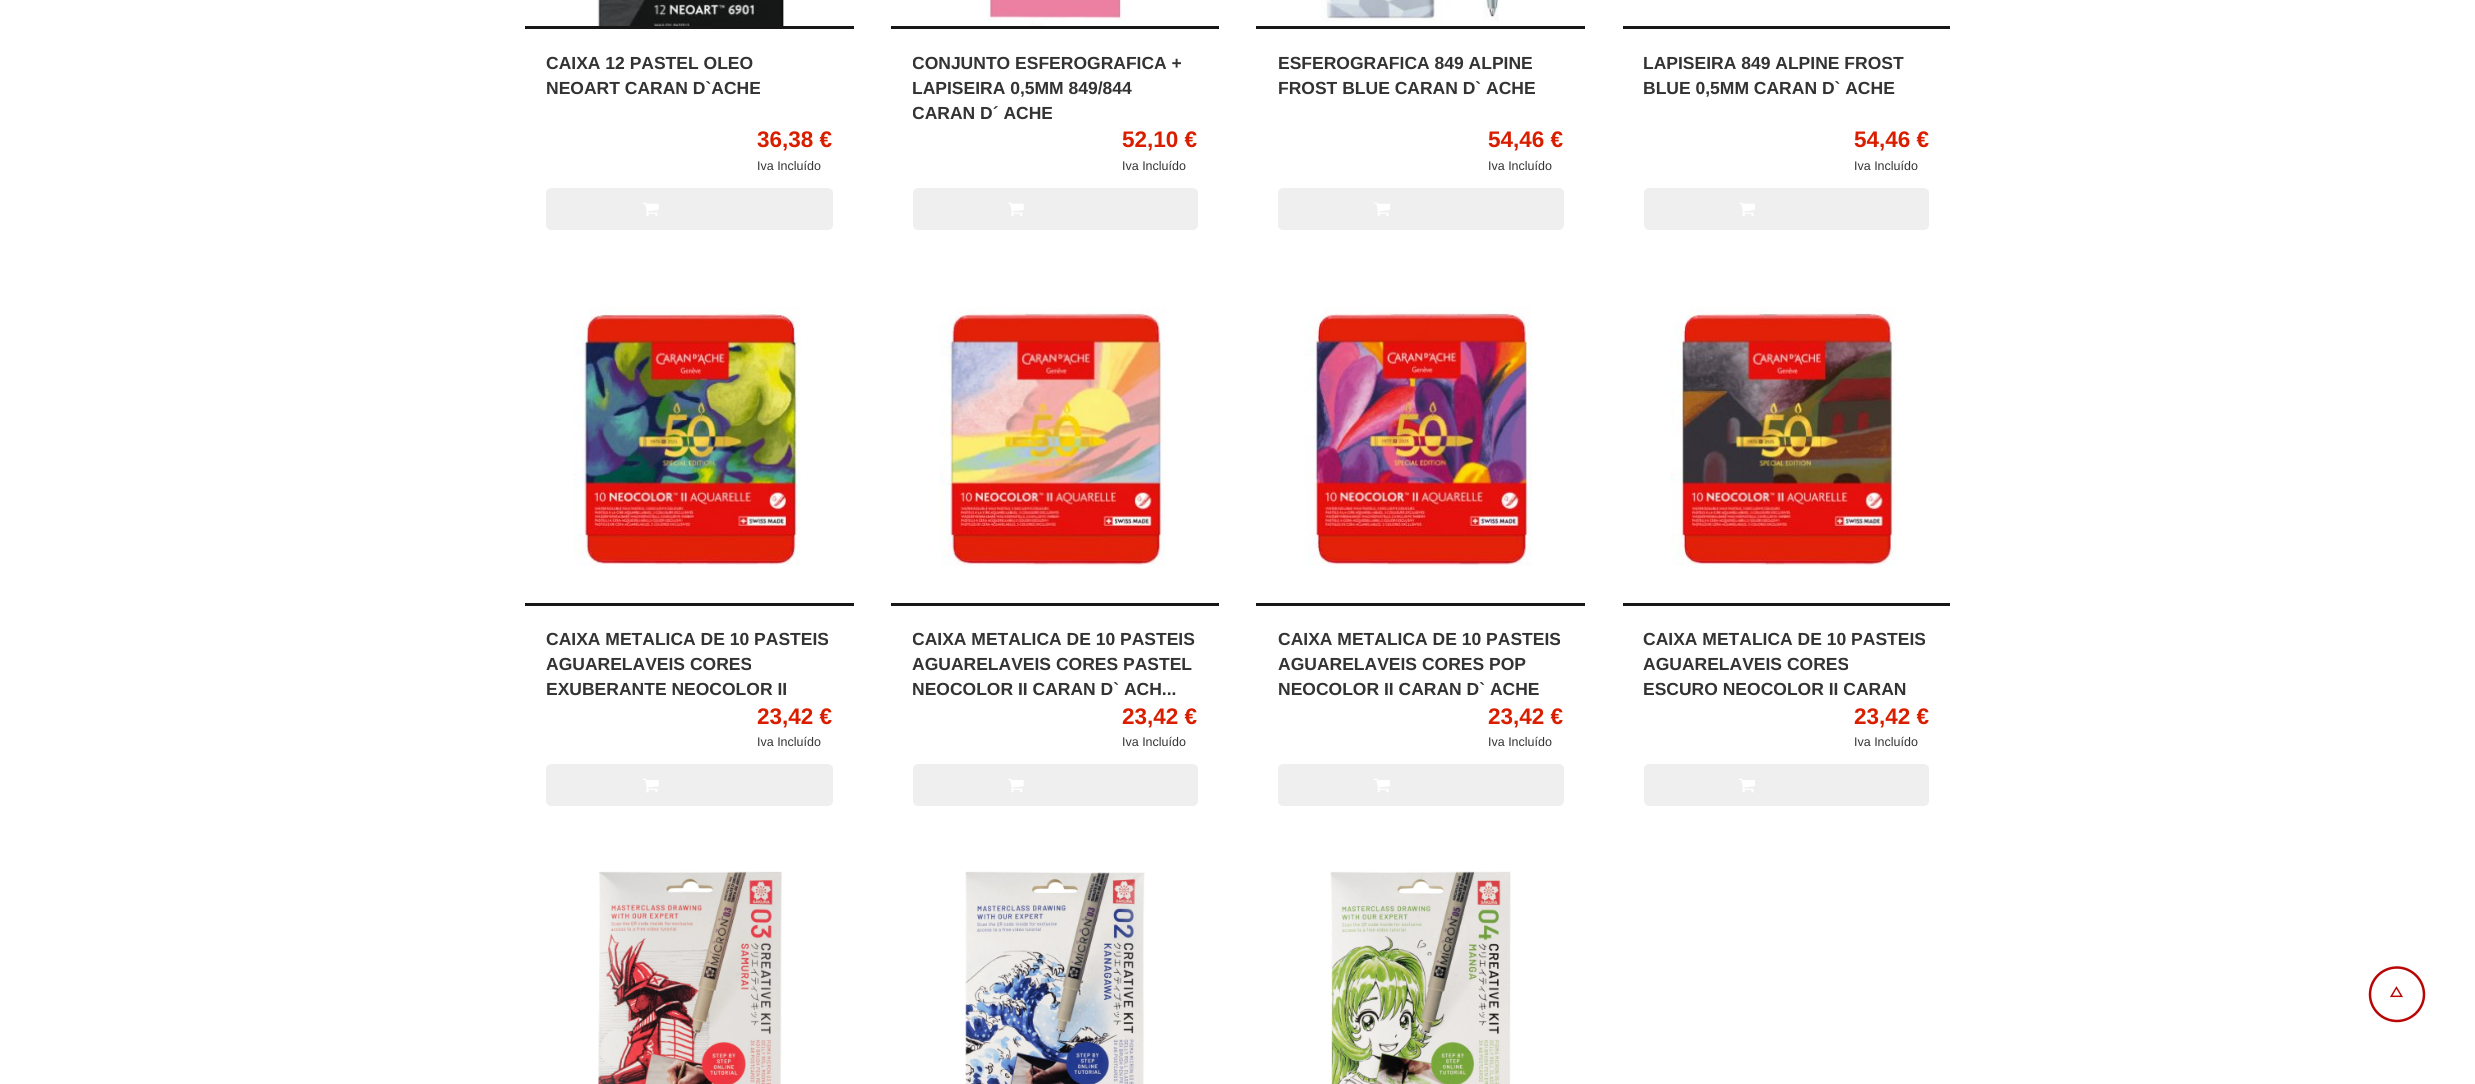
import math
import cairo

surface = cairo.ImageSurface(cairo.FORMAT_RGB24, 2475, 1084)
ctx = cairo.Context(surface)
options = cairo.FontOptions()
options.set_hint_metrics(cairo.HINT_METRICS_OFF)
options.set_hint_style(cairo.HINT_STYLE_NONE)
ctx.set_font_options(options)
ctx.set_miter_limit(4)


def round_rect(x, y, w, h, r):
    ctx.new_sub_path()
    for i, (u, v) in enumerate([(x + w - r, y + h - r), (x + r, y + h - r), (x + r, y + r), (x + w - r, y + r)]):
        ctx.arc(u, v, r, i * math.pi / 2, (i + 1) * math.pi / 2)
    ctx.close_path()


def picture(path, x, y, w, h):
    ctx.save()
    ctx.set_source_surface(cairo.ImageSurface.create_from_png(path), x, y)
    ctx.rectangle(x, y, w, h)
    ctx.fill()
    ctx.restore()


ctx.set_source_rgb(1, 1, 1)
ctx.paint()
picture("img1.png", 597, 0, 187, 26)
ctx.set_source_rgb(0.09, 0.09, 0.09)
ctx.rectangle(525, 26, 329, 3)
ctx.fill()
ctx.select_font_face("Liberation Sans", cairo.FONT_SLANT_NORMAL, cairo.FONT_WEIGHT_BOLD)
ctx.set_font_size(17.5)
ctx.set_source_rgb(0.2, 0.2, 0.2)
ctx.move_to(546, 69)
ctx.show_text("CAIXA 12 PASTEL OLEO")
ctx.move_to(546, 94)
ctx.show_text("NEOART CARAN D`ACHE")
ctx.set_font_size(22.5)
ctx.set_source_rgb(0.851, 0.118, 0)
ctx.move_to(757, 147)
ctx.show_text("36,38 €")
ctx.select_font_face("Liberation Sans")
ctx.set_font_size(12.5)
ctx.set_source_rgb(0.2, 0.2, 0.2)
ctx.move_to(757, 170)
ctx.show_text("Iva Incluído")
ctx.set_source_rgb(0.937, 0.937, 0.937)
round_rect(546, 188, 287, 42, 5)
ctx.fill()
picture("img2.png", 642, 202, 17, 14)
picture("img3.png", 988, 0, 143, 26)
ctx.set_source_rgb(0.09, 0.09, 0.09)
ctx.rectangle(891, 26, 328, 3)
ctx.fill()
ctx.save()
ctx.rectangle(913, 50, 285, 75)
ctx.clip()
ctx.select_font_face("Liberation Sans", cairo.FONT_SLANT_NORMAL, cairo.FONT_WEIGHT_BOLD)
ctx.set_font_size(17.5)
ctx.set_source_rgb(0.2, 0.2, 0.2)
ctx.move_to(912, 69)
ctx.show_text("CONJUNTO ESFEROGRAFICA +")
ctx.restore()
ctx.select_font_face("Liberation Sans", cairo.FONT_SLANT_NORMAL, cairo.FONT_WEIGHT_BOLD)
ctx.set_font_size(17.5)
ctx.set_source_rgb(0.2, 0.2, 0.2)
ctx.move_to(912, 94)
ctx.show_text("LAPISEIRA 0,5MM 849/844")
ctx.save()
ctx.rectangle(913, 50, 285, 75)
ctx.clip()
ctx.move_to(912, 119)
ctx.show_text("CARAN D´ ACHE")
ctx.restore()
ctx.set_font_size(22.5)
ctx.set_source_rgb(0.851, 0.118, 0)
ctx.move_to(1122, 147)
ctx.show_text("52,10 €")
ctx.select_font_face("Liberation Sans")
ctx.set_font_size(12.5)
ctx.set_source_rgb(0.2, 0.2, 0.2)
ctx.move_to(1122, 170)
ctx.show_text("Iva Incluído")
ctx.set_source_rgb(0.937, 0.937, 0.937)
round_rect(913, 188, 285, 42, 5)
ctx.fill()
picture("img2.png", 1007, 202, 17, 14)
picture("img4.png", 1321, 0, 178, 22)
ctx.set_source_rgb(0.09, 0.09, 0.09)
ctx.rectangle(1256, 26, 329, 3)
ctx.fill()
ctx.select_font_face("Liberation Sans", cairo.FONT_SLANT_NORMAL, cairo.FONT_WEIGHT_BOLD)
ctx.set_font_size(17.5)
ctx.set_source_rgb(0.2, 0.2, 0.2)
ctx.move_to(1278, 69)
ctx.show_text("ESFEROGRAFICA 849 ALPINE")
ctx.move_to(1278, 94)
ctx.show_text("FROST BLUE CARAN D` ACHE")
ctx.set_font_size(22.5)
ctx.set_source_rgb(0.851, 0.118, 0)
ctx.move_to(1488, 147)
ctx.show_text("54,46 €")
ctx.select_font_face("Liberation Sans")
ctx.set_font_size(12.5)
ctx.set_source_rgb(0.2, 0.2, 0.2)
ctx.move_to(1488, 170)
ctx.show_text("Iva Incluído")
ctx.set_source_rgb(0.937, 0.937, 0.937)
round_rect(1278, 188, 286, 42, 5)
ctx.fill()
picture("img5.png", 1374, 202, 16, 14)
ctx.set_source_rgb(0.09, 0.09, 0.09)
ctx.rectangle(1623, 26, 327, 3)
ctx.fill()
ctx.select_font_face("Liberation Sans", cairo.FONT_SLANT_NORMAL, cairo.FONT_WEIGHT_BOLD)
ctx.set_font_size(17.5)
ctx.set_source_rgb(0.2, 0.2, 0.2)
ctx.move_to(1643, 69)
ctx.show_text("LAPISEIRA 849 ALPINE FROST")
ctx.move_to(1643, 94)
ctx.show_text("BLUE 0,5MM CARAN D` ACHE")
ctx.set_font_size(22.5)
ctx.set_source_rgb(0.851, 0.118, 0)
ctx.move_to(1854, 147)
ctx.show_text("54,46 €")
ctx.select_font_face("Liberation Sans")
ctx.set_font_size(12.5)
ctx.set_source_rgb(0.2, 0.2, 0.2)
ctx.move_to(1854, 170)
ctx.show_text("Iva Incluído")
ctx.set_source_rgb(0.937, 0.937, 0.937)
round_rect(1644, 188, 285, 42, 5)
ctx.fill()
picture("img5.png", 1739, 202, 16, 14)
picture("img6.png", 573, 307, 228, 259)
ctx.set_source_rgb(0.09, 0.09, 0.09)
ctx.rectangle(525, 603, 329, 3)
ctx.fill()
ctx.select_font_face("Liberation Sans", cairo.FONT_SLANT_NORMAL, cairo.FONT_WEIGHT_BOLD)
ctx.set_font_size(17.5)
ctx.set_source_rgb(0.2, 0.2, 0.2)
ctx.move_to(546, 645)
ctx.show_text("CAIXA METALICA DE 10 PASTEIS")
ctx.move_to(546, 670)
ctx.show_text("AGUARELAVEIS CORES")
ctx.move_to(546, 695)
ctx.show_text("EXUBERANTE NEOCOLOR II")
ctx.set_font_size(22.5)
ctx.set_source_rgb(0.851, 0.118, 0)
ctx.move_to(757, 724)
ctx.show_text("23,42 €")
ctx.select_font_face("Liberation Sans")
ctx.set_font_size(12.5)
ctx.set_source_rgb(0.2, 0.2, 0.2)
ctx.move_to(757, 746)
ctx.show_text("Iva Incluído")
ctx.set_source_rgb(0.937, 0.937, 0.937)
round_rect(546, 764, 287, 42, 5)
ctx.fill()
picture("img7.png", 642, 778, 17, 15)
picture("img8.png", 939, 307, 227, 259)
ctx.set_source_rgb(0.09, 0.09, 0.09)
ctx.rectangle(891, 603, 328, 3)
ctx.fill()
ctx.save()
ctx.rectangle(913, 626, 285, 75)
ctx.clip()
ctx.select_font_face("Liberation Sans", cairo.FONT_SLANT_NORMAL, cairo.FONT_WEIGHT_BOLD)
ctx.set_font_size(17.5)
ctx.set_source_rgb(0.2, 0.2, 0.2)
ctx.move_to(912, 645)
ctx.show_text("CAIXA METALICA DE 10")
ctx.restore()
ctx.select_font_face("Liberation Sans", cairo.FONT_SLANT_NORMAL, cairo.FONT_WEIGHT_BOLD)
ctx.set_font_size(17.5)
ctx.set_source_rgb(0.2, 0.2, 0.2)
ctx.move_to(1120, 645)
ctx.show_text("PASTEIS")
ctx.move_to(912, 670)
ctx.show_text("AGUARELAVEIS CORES PASTEL")
ctx.move_to(912, 695)
ctx.show_text("NEOCOLOR II CARAN D` ACH...")
ctx.set_font_size(22.5)
ctx.set_source_rgb(0.851, 0.118, 0)
ctx.move_to(1122, 724)
ctx.show_text("23,42 €")
ctx.select_font_face("Liberation Sans")
ctx.set_font_size(12.5)
ctx.set_source_rgb(0.2, 0.2, 0.2)
ctx.move_to(1122, 746)
ctx.show_text("Iva Incluído")
ctx.set_source_rgb(0.937, 0.937, 0.937)
round_rect(913, 764, 285, 42, 5)
ctx.fill()
picture("img7.png", 1007, 778, 17, 15)
picture("img9.png", 1304, 307, 228, 259)
ctx.set_source_rgb(0.09, 0.09, 0.09)
ctx.rectangle(1256, 603, 329, 3)
ctx.fill()
ctx.select_font_face("Liberation Sans", cairo.FONT_SLANT_NORMAL, cairo.FONT_WEIGHT_BOLD)
ctx.set_font_size(17.5)
ctx.set_source_rgb(0.2, 0.2, 0.2)
ctx.move_to(1278, 645)
ctx.show_text("CAIXA METALICA DE 10 PASTEIS")
ctx.move_to(1278, 670)
ctx.show_text("AGUARELAVEIS CORES POP")
ctx.move_to(1278, 695)
ctx.show_text("NEOCOLOR II CARAN D` ACHE")
ctx.set_font_size(22.5)
ctx.set_source_rgb(0.851, 0.118, 0)
ctx.move_to(1488, 724)
ctx.show_text("23,42 €")
ctx.select_font_face("Liberation Sans")
ctx.set_font_size(12.5)
ctx.set_source_rgb(0.2, 0.2, 0.2)
ctx.move_to(1488, 746)
ctx.show_text("Iva Incluído")
ctx.set_source_rgb(0.937, 0.937, 0.937)
round_rect(1278, 764, 286, 42, 5)
ctx.fill()
picture("img10.png", 1374, 778, 16, 15)
picture("img11.png", 1670, 307, 227, 259)
ctx.set_source_rgb(0.09, 0.09, 0.09)
ctx.rectangle(1623, 603, 327, 3)
ctx.fill()
ctx.select_font_face("Liberation Sans", cairo.FONT_SLANT_NORMAL, cairo.FONT_WEIGHT_BOLD)
ctx.set_font_size(17.5)
ctx.set_source_rgb(0.2, 0.2, 0.2)
ctx.move_to(1643, 645)
ctx.show_text("CAIXA METALICA DE 10 PASTEIS")
ctx.move_to(1643, 670)
ctx.show_text("AGUARELAVEIS CORES")
ctx.move_to(1643, 695)
ctx.show_text("ESCURO NEOCOLOR II CARAN")
ctx.set_font_size(22.5)
ctx.set_source_rgb(0.851, 0.118, 0)
ctx.move_to(1854, 724)
ctx.show_text("23,42 €")
ctx.select_font_face("Liberation Sans")
ctx.set_font_size(12.5)
ctx.set_source_rgb(0.2, 0.2, 0.2)
ctx.move_to(1854, 746)
ctx.show_text("Iva Incluído")
ctx.set_source_rgb(0.937, 0.937, 0.937)
round_rect(1644, 764, 285, 42, 5)
ctx.fill()
picture("img10.png", 1739, 778, 16, 15)
picture("img12.png", 598, 871, 184, 213)
picture("img13.png", 965, 871, 180, 213)
picture("img14.png", 1330, 871, 181, 213)
ctx.new_path()
ctx.move_to(2370, 994.5)
ctx.curve_to(2370, 979.5, 2382, 967.5, 2397, 967.5)
ctx.curve_to(2411.5, 967.5, 2424, 979.5, 2424, 994.5)
ctx.curve_to(2424, 1009, 2411.5, 1021, 2397, 1021)
ctx.curve_to(2382, 1021, 2370, 1009, 2370, 994.5)
ctx.close_path()
ctx.set_source_rgb(0.725, 0.024, 0.02)
ctx.set_line_width(2.5)
ctx.stroke()
picture("img15.png", 2390, 986, 13, 12)
surface.write_to_png("page.png")
